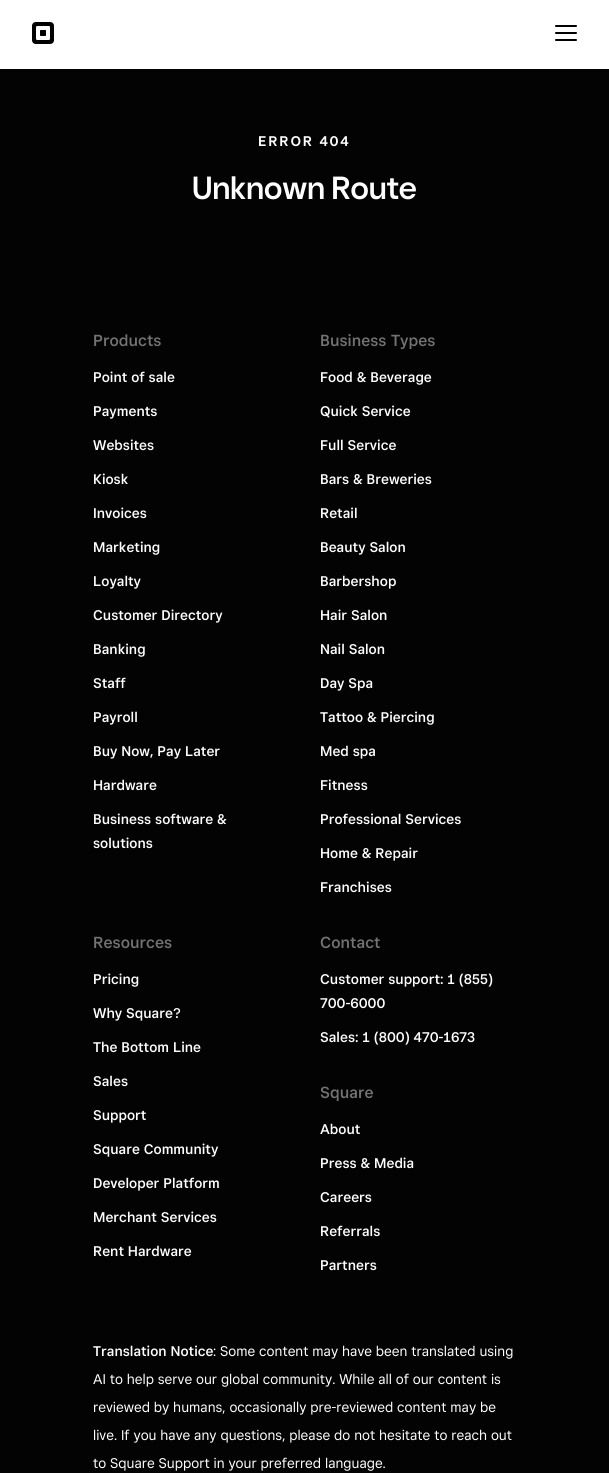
import math
import cairo

surface = cairo.ImageSurface(cairo.FORMAT_RGB24, 609, 1473)
ctx = cairo.Context(surface)
options = cairo.FontOptions()
options.set_hint_metrics(cairo.HINT_METRICS_OFF)
options.set_hint_style(cairo.HINT_STYLE_NONE)
ctx.set_font_options(options)
ctx.set_miter_limit(4)


def spaced_text(x, y, s, letter, word):
    ctx.move_to(x, y)
    for ch in s:
        ctx.show_text(ch)
        ctx.rel_move_to(letter + word * (ch == ' '), 0)


def round_rect(x, y, w, h, r):
    ctx.new_sub_path()
    for i, (u, v) in enumerate([(x + w - r, y + h - r), (x + r, y + h - r), (x + r, y + r), (x + w - r, y + r)]):
        ctx.arc(u, v, r, i * math.pi / 2, (i + 1) * math.pi / 2)
    ctx.close_path()


def picture(path, x, y, w, h):
    ctx.save()
    ctx.set_source_surface(cairo.ImageSurface.create_from_png(path), x, y)
    ctx.rectangle(x, y, w, h)
    ctx.fill()
    ctx.restore()


ctx.set_source_rgb(1, 1, 1)
ctx.paint()
picture("img1.png", 32, 22, 22, 22)
ctx.set_source_rgb(0, 0, 0)
round_rect(555, 25, 22, 2, 1)
ctx.fill()
round_rect(555, 32, 22, 2, 1)
ctx.fill()
round_rect(555, 39, 22, 2, 1)
ctx.fill()
ctx.set_source_rgb(0.012, 0.012, 0.012)
ctx.rectangle(0, 69, 609, 1404)
ctx.fill()
ctx.select_font_face("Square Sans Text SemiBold")
ctx.set_font_size(14)
ctx.set_source_rgb(1, 1, 1)
spaced_text(258, 146, "ERROR 404", 1.75, 0)
ctx.select_font_face("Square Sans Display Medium")
ctx.set_font_size(32)
ctx.move_to(192, 199)
ctx.show_text("Unknown Route")
ctx.select_font_face("Square Sans Text Medium")
ctx.set_font_size(16)
ctx.set_source_rgb(0.451, 0.451, 0.451)
ctx.move_to(93, 346)
ctx.show_text("Products")
ctx.set_font_size(14)
ctx.set_source_rgb(1, 1, 1)
ctx.move_to(93, 382)
ctx.show_text("Point of sale")
ctx.move_to(93, 416)
ctx.show_text("Payments")
ctx.move_to(93, 450)
ctx.show_text("Websites")
ctx.move_to(93, 484)
ctx.show_text("Kiosk")
ctx.move_to(93, 518)
ctx.show_text("Invoices")
ctx.move_to(93, 552)
ctx.show_text("Marketing")
ctx.move_to(93, 586)
ctx.show_text("Loyalty")
ctx.move_to(93, 620)
ctx.show_text("Customer Directory")
ctx.move_to(93, 654)
ctx.show_text("Banking")
ctx.move_to(93, 688)
ctx.show_text("Staff")
ctx.move_to(93, 722)
ctx.show_text("Payroll")
ctx.move_to(93, 756)
ctx.show_text("Buy Now, Pay Later")
ctx.move_to(93, 790)
ctx.show_text("Hardware")
ctx.move_to(93, 824)
ctx.show_text("Business software &")
ctx.move_to(93, 848)
ctx.show_text("solutions")
ctx.set_font_size(16)
ctx.set_source_rgb(0.451, 0.451, 0.451)
ctx.move_to(320, 346)
ctx.show_text("Business Types")
ctx.set_font_size(14)
ctx.set_source_rgb(1, 1, 1)
ctx.move_to(320, 382)
ctx.show_text("Food & Beverage")
ctx.move_to(320, 416)
ctx.show_text("Quick Service")
ctx.move_to(320, 450)
ctx.show_text("Full Service")
ctx.move_to(320, 484)
ctx.show_text("Bars & Breweries")
ctx.move_to(320, 518)
ctx.show_text("Retail")
ctx.move_to(320, 552)
ctx.show_text("Beauty Salon")
ctx.move_to(320, 586)
ctx.show_text("Barbershop")
ctx.move_to(320, 620)
ctx.show_text("Hair Salon")
ctx.move_to(320, 654)
ctx.show_text("Nail Salon")
ctx.move_to(320, 688)
ctx.show_text("Day Spa")
ctx.move_to(320, 722)
ctx.show_text("Tattoo & Piercing")
ctx.move_to(320, 756)
ctx.show_text("Med spa")
ctx.move_to(320, 790)
ctx.show_text("Fitness")
ctx.move_to(320, 824)
ctx.show_text("Professional Services")
ctx.move_to(320, 858)
ctx.show_text("Home & Repair")
ctx.move_to(320, 892)
ctx.show_text("Franchises")
ctx.set_font_size(16)
ctx.set_source_rgb(0.451, 0.451, 0.451)
ctx.move_to(93, 948)
ctx.show_text("Resources")
ctx.set_font_size(14)
ctx.set_source_rgb(1, 1, 1)
ctx.move_to(93, 984)
ctx.show_text("Pricing")
ctx.move_to(93, 1018)
ctx.show_text("Why Square?")
ctx.move_to(93, 1052)
ctx.show_text("The Bottom Line")
ctx.move_to(93, 1086)
ctx.show_text("Sales")
ctx.move_to(93, 1120)
ctx.show_text("Support")
ctx.move_to(93, 1154)
ctx.show_text("Square Community")
ctx.move_to(93, 1188)
ctx.show_text("Developer Platform")
ctx.move_to(93, 1222)
ctx.show_text("Merchant Services")
ctx.move_to(93, 1256)
ctx.show_text("Rent Hardware")
ctx.set_font_size(16)
ctx.set_source_rgb(0.451, 0.451, 0.451)
ctx.move_to(320, 948)
ctx.show_text("Contact")
ctx.set_font_size(14)
ctx.set_source_rgb(1, 1, 1)
ctx.move_to(320, 984)
ctx.show_text("Customer support: 1 (855)")
ctx.move_to(320, 1008)
ctx.show_text("700-6000")
ctx.move_to(320, 1042)
ctx.show_text("Sales: 1 (800) 470-1673")
ctx.set_font_size(16)
ctx.set_source_rgb(0.451, 0.451, 0.451)
ctx.move_to(320, 1098)
ctx.show_text("Square")
ctx.set_font_size(14)
ctx.set_source_rgb(1, 1, 1)
ctx.move_to(320, 1134)
ctx.show_text("About")
ctx.move_to(320, 1168)
ctx.show_text("Press & Media")
ctx.move_to(320, 1202)
ctx.show_text("Careers")
ctx.move_to(320, 1236)
ctx.show_text("Referrals")
ctx.move_to(320, 1270)
ctx.show_text("Partners")
ctx.move_to(93, 1356)
ctx.show_text("Translation Notice")
ctx.select_font_face("Square Sans Text")
ctx.move_to(213, 1356)
ctx.show_text(": Some content may have been translated using")
ctx.move_to(93, 1384)
ctx.show_text("AI to help serve our global community. While all of our content is")
ctx.move_to(93, 1412)
ctx.show_text("reviewed by humans, occasionally pre-reviewed content may be")
ctx.move_to(93, 1440)
ctx.show_text("live. If you have any questions, please do not hesitate to reach out")
ctx.move_to(93, 1468)
ctx.show_text("to Square Support in your preferred language.")
surface.write_to_png("page.png")
